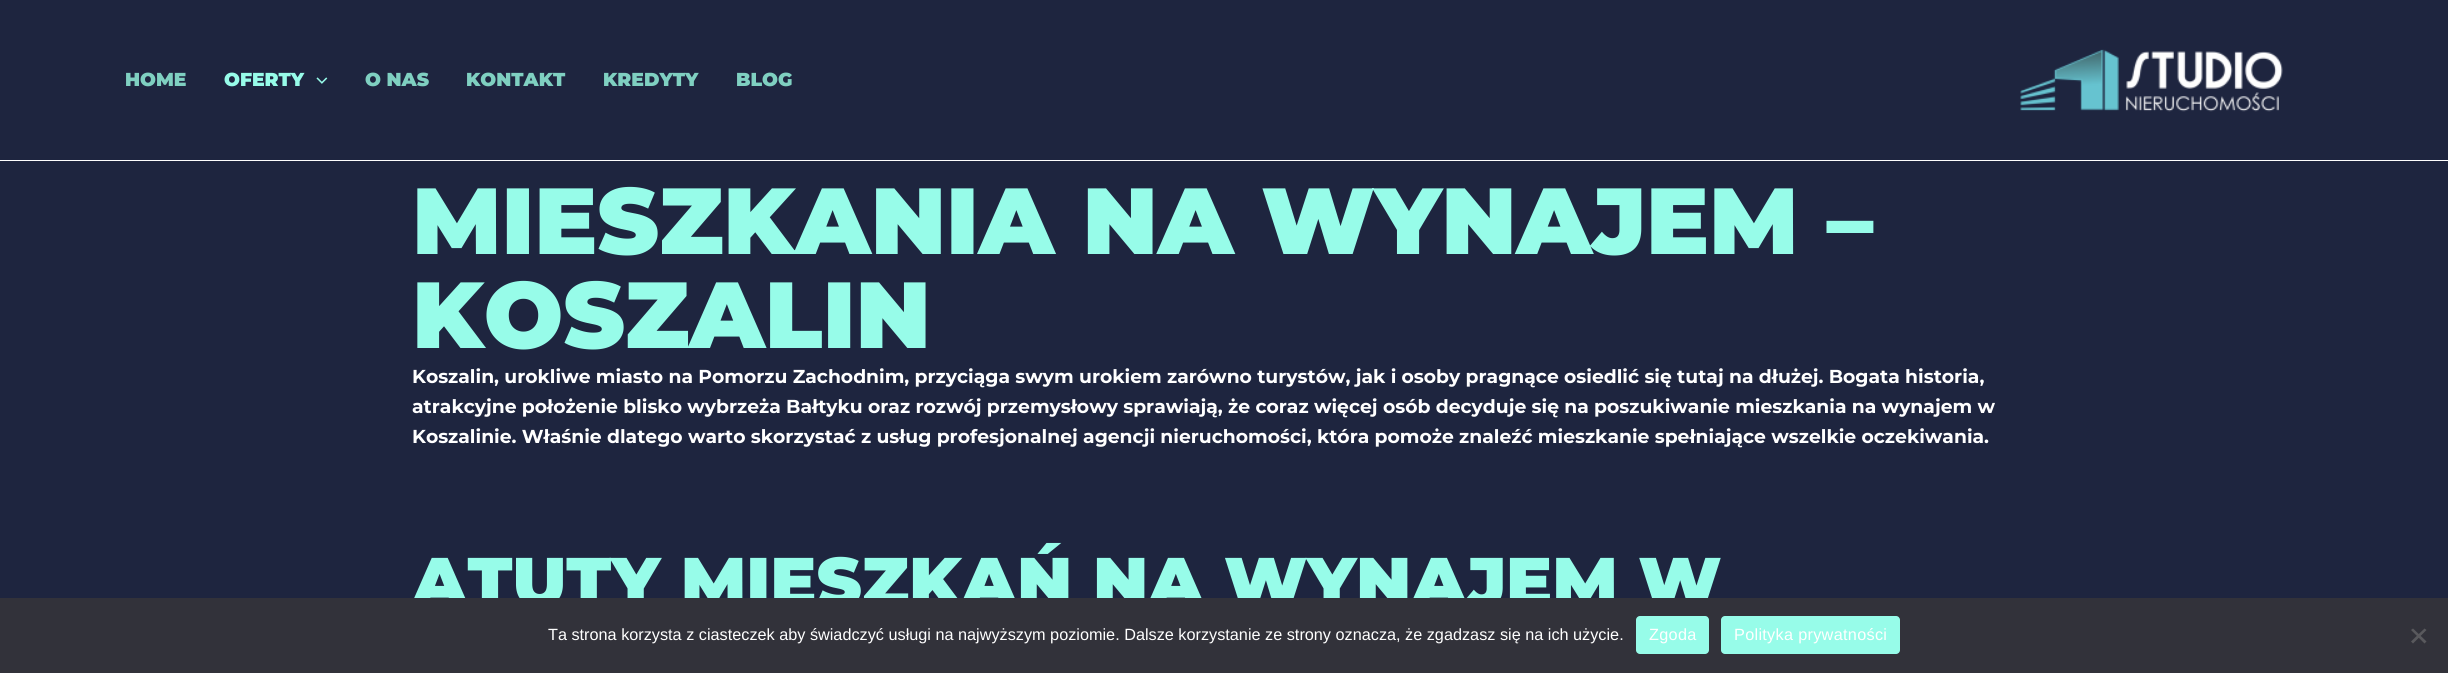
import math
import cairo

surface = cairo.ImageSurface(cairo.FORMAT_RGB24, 2448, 673)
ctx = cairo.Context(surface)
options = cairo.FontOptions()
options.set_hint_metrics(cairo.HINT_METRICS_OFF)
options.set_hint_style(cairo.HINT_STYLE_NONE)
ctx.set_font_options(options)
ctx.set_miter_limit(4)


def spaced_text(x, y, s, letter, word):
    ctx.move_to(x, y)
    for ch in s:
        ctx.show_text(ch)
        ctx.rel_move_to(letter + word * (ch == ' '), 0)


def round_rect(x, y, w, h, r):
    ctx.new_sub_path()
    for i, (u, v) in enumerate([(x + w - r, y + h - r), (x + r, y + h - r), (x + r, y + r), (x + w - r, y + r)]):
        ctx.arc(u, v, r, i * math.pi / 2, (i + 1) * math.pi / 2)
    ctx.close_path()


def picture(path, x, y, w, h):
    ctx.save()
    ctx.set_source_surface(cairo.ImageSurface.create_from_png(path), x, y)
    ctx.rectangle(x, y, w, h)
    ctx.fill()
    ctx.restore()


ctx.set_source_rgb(0.118, 0.145, 0.247)
ctx.paint()
ctx.set_source_rgb(1, 1, 1)
ctx.rectangle(0, 160, 2448, 1)
ctx.fill()
ctx.select_font_face("Montserrat Black")
ctx.set_font_size(18.75)
ctx.set_source_rgb(0.498, 0.816, 0.757)
ctx.move_to(125, 86)
ctx.show_text("HOME")
ctx.set_source_rgb(0.592, 0.988, 0.914)
ctx.move_to(224, 86)
ctx.show_text("OFERTY")
picture("img1.png", 316, 77, 12, 7)
ctx.set_source_rgb(0.498, 0.816, 0.757)
ctx.move_to(365, 86)
ctx.show_text("O NAS")
ctx.move_to(466, 86)
ctx.show_text("KONTAKT")
ctx.move_to(603, 86)
ctx.show_text("KREDYTY")
ctx.move_to(736, 86)
ctx.show_text("BLOG")
picture("img2.png", 2020, 49, 263, 63)
ctx.set_font_size(93.75)
ctx.set_source_rgb(0.592, 0.988, 0.914)
ctx.move_to(412, 254)
ctx.show_text("MIESZKANIA NA WYNAJEM –")
ctx.move_to(412, 348)
ctx.show_text("KOSZALIN")
ctx.select_font_face("Montserrat", cairo.FONT_SLANT_NORMAL, cairo.FONT_WEIGHT_BOLD)
ctx.set_font_size(18.75)
ctx.set_source_rgb(1, 1, 1)
ctx.move_to(412, 383)
ctx.show_text("Koszalin, urokliwe miasto na Pomorzu Zachodnim, przyciąga swym urokiem zarówno turystów, jak i osoby pragnące osiedlić się tutaj na dłużej. Bogata historia,")
ctx.move_to(412, 413)
ctx.show_text("atrakcyjne położenie blisko wybrzeża Bałtyku oraz rozwój przemysłowy sprawiają, że coraz więcej osób decyduje się na poszukiwanie mieszkania na wynajem w")
ctx.move_to(412, 443)
ctx.show_text("Koszalinie. Właśnie dlatego warto skorzystać z usług profesjonalnej agencji nieruchomości, która pomoże znaleźć mieszkanie spełniające wszelkie oczekiwania.")
ctx.select_font_face("Montserrat Black")
ctx.set_font_size(68.75)
ctx.set_source_rgb(0.592, 0.988, 0.914)
ctx.move_to(412, 606)
ctx.show_text("ATUTY MIESZKAŃ NA WYNAJEM W")
ctx.set_source_rgb(0.196, 0.196, 0.227)
ctx.rectangle(0, 598, 2448, 75)
ctx.fill()
ctx.select_font_face("Liberation Sans")
ctx.set_font_size(16.25)
ctx.set_source_rgb(1, 1, 1)
ctx.move_to(548, 640)
ctx.show_text("Ta strona korzysta z ciasteczek aby świadczyć usługi na najwyższym poziomie. Dalsze korzystanie ze strony oznacza, że zgadzasz się na ich użycie.")
ctx.set_source_rgb(0.592, 0.988, 0.914)
round_rect(1636, 616, 73, 38, 4)
ctx.fill()
ctx.set_source_rgb(1, 1, 1)
spaced_text(1649, 640, "Zgoda", 0.3, 0)
ctx.set_source_rgb(0.592, 0.988, 0.914)
round_rect(1721, 616, 179, 38, 4)
ctx.fill()
ctx.set_source_rgb(1, 1, 1)
spaced_text(1734, 640, "Polityka prywatności", 0.3, 0)
ctx.set_source_rgb(0.349, 0.349, 0.365)
ctx.new_path()
ctx.move_to(2424.5, 628.5)
ctx.line_to(2426.5, 630)
ctx.line_to(2413, 643.5)
ctx.line_to(2411, 641.5)
ctx.close_path()
ctx.fill()
ctx.new_path()
ctx.move_to(2411, 630)
ctx.line_to(2413, 628.5)
ctx.line_to(2426.5, 641.5)
ctx.line_to(2424.5, 643.5)
ctx.close_path()
ctx.fill()
surface.write_to_png("page.png")
